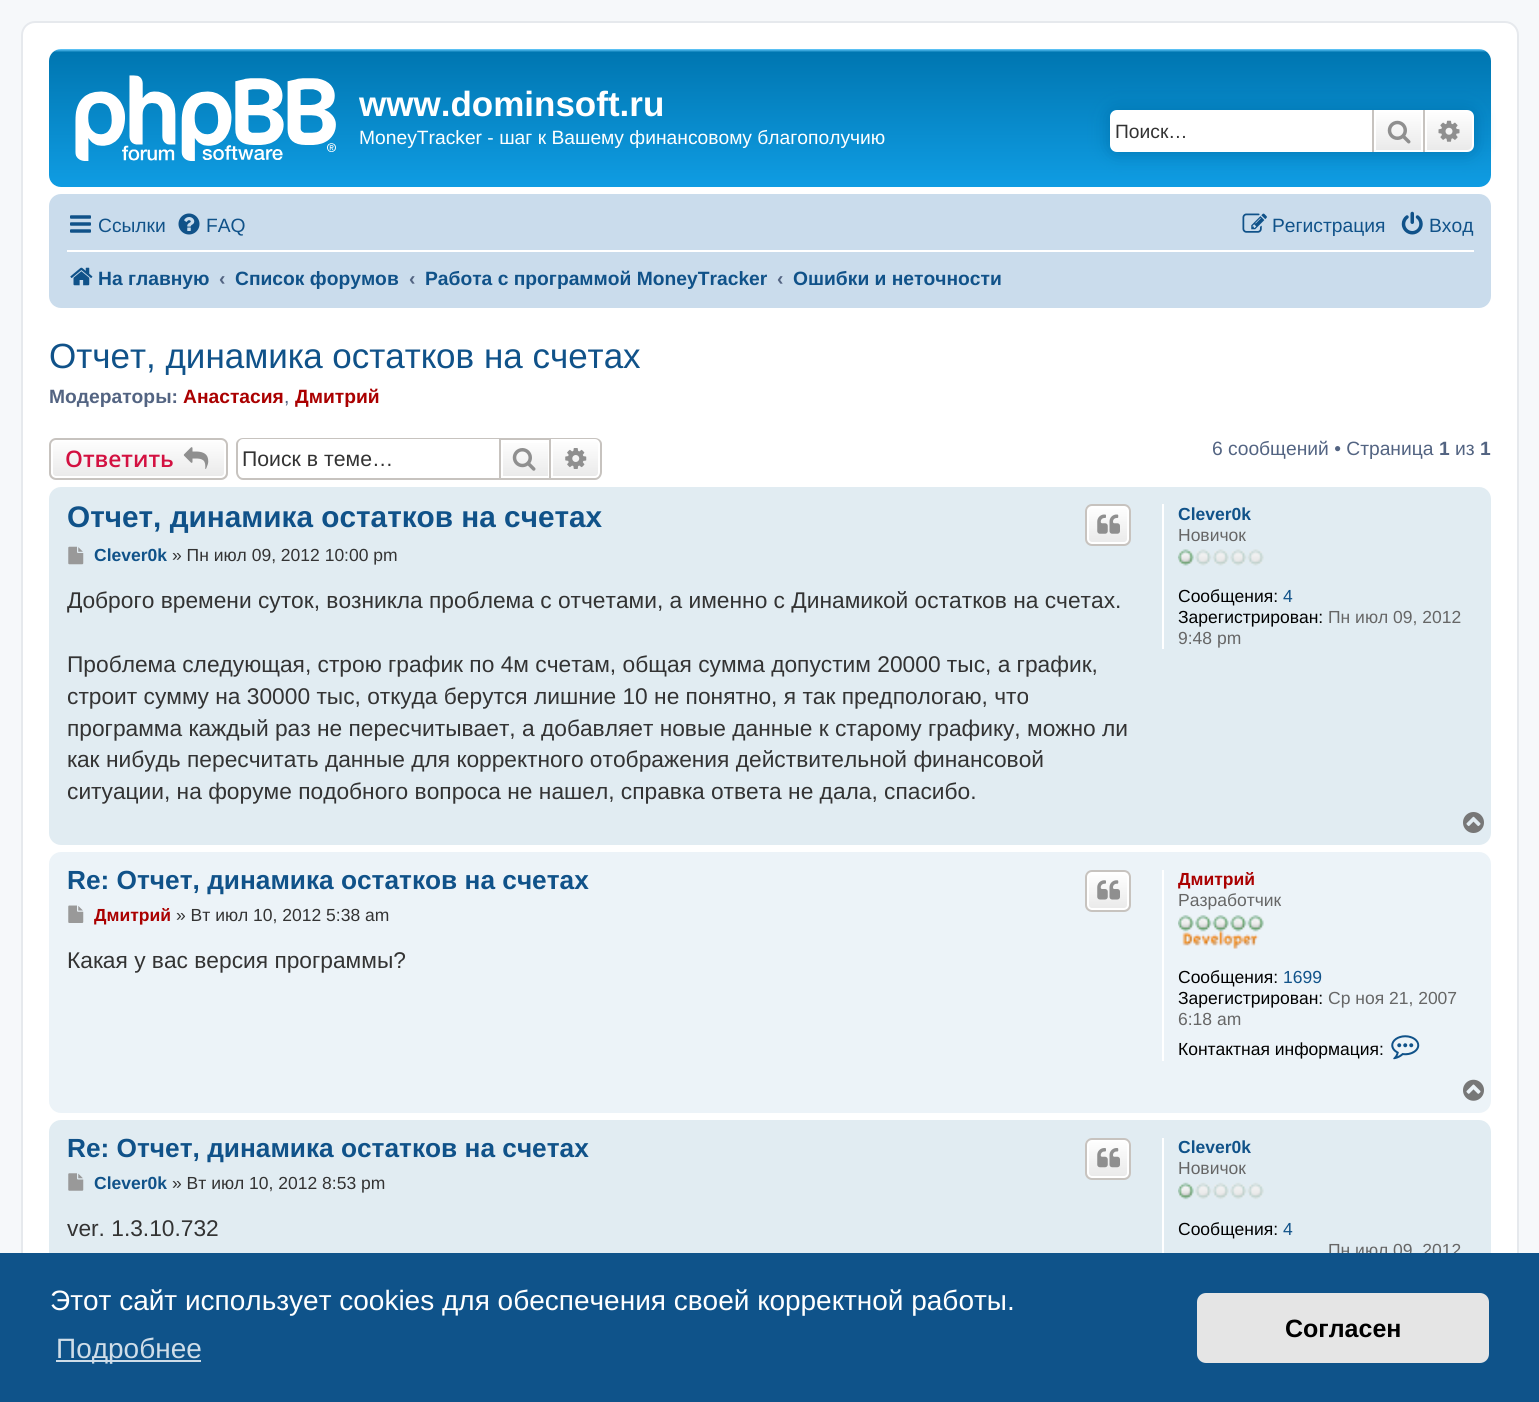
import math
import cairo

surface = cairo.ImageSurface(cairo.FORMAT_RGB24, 1539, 1402)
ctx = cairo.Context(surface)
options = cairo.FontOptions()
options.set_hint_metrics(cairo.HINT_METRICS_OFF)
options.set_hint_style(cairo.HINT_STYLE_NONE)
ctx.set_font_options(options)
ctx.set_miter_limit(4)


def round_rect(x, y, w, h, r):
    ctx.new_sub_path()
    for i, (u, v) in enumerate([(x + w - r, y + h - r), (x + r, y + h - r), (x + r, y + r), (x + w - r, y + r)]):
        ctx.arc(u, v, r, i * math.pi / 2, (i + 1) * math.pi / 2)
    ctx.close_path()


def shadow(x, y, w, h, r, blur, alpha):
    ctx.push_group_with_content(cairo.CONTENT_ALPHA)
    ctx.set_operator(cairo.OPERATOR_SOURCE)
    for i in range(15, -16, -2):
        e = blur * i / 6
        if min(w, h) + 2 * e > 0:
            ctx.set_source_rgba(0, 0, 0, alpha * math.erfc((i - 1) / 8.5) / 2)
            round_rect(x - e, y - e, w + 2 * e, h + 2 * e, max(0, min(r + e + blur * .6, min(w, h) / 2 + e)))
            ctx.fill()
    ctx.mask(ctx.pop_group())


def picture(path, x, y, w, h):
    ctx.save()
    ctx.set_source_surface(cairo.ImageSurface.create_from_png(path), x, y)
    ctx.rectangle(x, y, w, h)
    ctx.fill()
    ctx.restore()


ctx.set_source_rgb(0.961, 0.969, 0.98)
ctx.paint()
ctx.set_source_rgb(1, 1, 1)
round_rect(22, 22, 1496, 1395, 13)
ctx.fill_preserve()
ctx.set_source_rgb(0.902, 0.914, 0.929)
ctx.stroke()
gradient = cairo.LinearGradient(770, 49, 770, 210)
gradient.add_color_stop_rgba(0, 0.416, 0.808, 1, 1)
gradient.add_color_stop_rgba(0.02, 0, 0.463, 0.694, 1)
gradient.add_color_stop_rgba(1, 0.071, 0.639, 0.922, 1)
ctx.set_source(gradient)
round_rect(49, 49, 1442, 138, 12)
ctx.fill()
picture("img1.png", 75, 75, 261, 86)
ctx.select_font_face("Liberation Sans", cairo.FONT_SLANT_NORMAL, cairo.FONT_WEIGHT_BOLD)
ctx.set_font_size(35)
ctx.set_source_rgb(1, 1, 1)
ctx.move_to(359, 116)
ctx.show_text("www.dominsoft.ru")
ctx.select_font_face("Liberation Sans")
ctx.set_font_size(19.25)
ctx.move_to(359, 144)
ctx.show_text("MoneyTracker - шаг к Вашему финансовому благополучию")
ctx.set_source_rgb(0, 0.459, 0.69)
shadow(1110, 110, 364, 42, 7, 9, 1)
ctx.set_source_rgb(1, 1, 1)
ctx.new_path()
ctx.move_to(1117, 110)
ctx.line_to(1372, 110)
ctx.line_to(1372, 152)
ctx.line_to(1117, 152)
ctx.curve_to(1113, 152, 1110, 149, 1110, 145)
ctx.line_to(1110, 117)
ctx.curve_to(1110, 113, 1113, 110, 1117, 110)
ctx.close_path()
ctx.fill()
ctx.set_source_rgb(0.2, 0.2, 0.2)
ctx.move_to(1115, 138)
ctx.show_text("Поиск…")
gradient = cairo.LinearGradient(1398, 110, 1398, 152)
gradient.add_color_stop_rgba(0, 1, 1, 1, 1)
gradient.add_color_stop_rgba(1, 0.914, 0.914, 0.914, 1)
ctx.set_source(gradient)
ctx.rectangle(1376, 112, 45, 38)
ctx.fill()
ctx.rectangle(1375, 111, 47, 40)
ctx.set_source_rgb(1, 1, 1)
ctx.stroke()
ctx.set_source_rgb(0.78, 0.765, 0.749)
ctx.rectangle(1423, 110, 2, 42)
ctx.fill()
ctx.rectangle(1372, 110, 2, 42)
ctx.fill()
picture("img2.png", 1387, 120, 24, 24)
gradient = cairo.LinearGradient(1449, 110, 1449, 152)
gradient.add_color_stop_rgba(0, 1, 1, 1, 1)
gradient.add_color_stop_rgba(1, 0.914, 0.914, 0.914, 1)
ctx.set_source(gradient)
ctx.new_path()
ctx.move_to(1426, 111)
ctx.line_to(1467, 111)
ctx.curve_to(1470.5, 111, 1473, 113.5, 1473, 117)
ctx.line_to(1473, 145)
ctx.curve_to(1473, 148.5, 1470.5, 151, 1467, 151)
ctx.line_to(1426, 151)
ctx.close_path()
ctx.fill_preserve()
ctx.set_source_rgb(1, 1, 1)
ctx.stroke()
picture("img3.png", 1438, 120, 22, 22)
ctx.set_source_rgb(0.792, 0.863, 0.922)
round_rect(49, 194, 1442, 114, 12)
ctx.fill()
picture("img4.png", 70, 215, 21, 18)
ctx.set_source_rgb(0.063, 0.322, 0.537)
ctx.move_to(98, 232)
ctx.show_text("Ссылки")
picture("img5.png", 178, 213, 22, 22)
ctx.move_to(206, 232)
ctx.show_text("FAQ")
picture("img6.png", 1242, 213, 25, 20)
ctx.move_to(1272, 232)
ctx.show_text("Регистрация")
picture("img7.png", 1401, 211, 22, 24)
ctx.move_to(1429, 232)
ctx.show_text("Вход")
ctx.set_source_rgb(1, 1, 1)
ctx.rectangle(67, 250, 1407, 2)
ctx.fill()
picture("img8.png", 70, 267, 23, 19)
ctx.select_font_face("Liberation Sans", cairo.FONT_SLANT_NORMAL, cairo.FONT_WEIGHT_BOLD)
ctx.set_source_rgb(0.063, 0.322, 0.537)
ctx.move_to(98, 285)
ctx.show_text("На главную")
ctx.set_source_rgb(0.325, 0.392, 0.51)
ctx.move_to(219, 285)
ctx.show_text("‹")
ctx.set_source_rgb(0.063, 0.322, 0.537)
ctx.move_to(235, 285)
ctx.show_text("Список форумов")
ctx.set_source_rgb(0.325, 0.392, 0.51)
ctx.move_to(409, 285)
ctx.show_text("‹")
ctx.set_source_rgb(0.063, 0.322, 0.537)
ctx.move_to(425, 285)
ctx.show_text("Работа с программой MoneyTracker")
ctx.set_source_rgb(0.325, 0.392, 0.51)
ctx.move_to(777, 285)
ctx.show_text("‹")
ctx.set_source_rgb(0.063, 0.322, 0.537)
ctx.move_to(793, 285)
ctx.show_text("Ошибки и неточности")
ctx.select_font_face("Liberation Sans")
ctx.set_font_size(35)
ctx.move_to(49, 368)
ctx.show_text("Отчет, динамика остатков на счетах")
ctx.select_font_face("Liberation Sans", cairo.FONT_SLANT_NORMAL, cairo.FONT_WEIGHT_BOLD)
ctx.set_font_size(19.25)
ctx.set_source_rgb(0.325, 0.392, 0.51)
ctx.move_to(49, 403)
ctx.show_text("Модераторы:")
ctx.set_source_rgb(0.667, 0, 0)
ctx.move_to(183, 403)
ctx.show_text("Анастасия")
ctx.select_font_face("Liberation Sans")
ctx.set_source_rgb(0.325, 0.392, 0.51)
ctx.move_to(284, 403)
ctx.show_text(",")
ctx.select_font_face("Liberation Sans", cairo.FONT_SLANT_NORMAL, cairo.FONT_WEIGHT_BOLD)
ctx.set_source_rgb(0.667, 0, 0)
ctx.move_to(295, 403)
ctx.show_text("Дмитрий")
ctx.save()
round_rect(49, 438, 179, 42, 7)
ctx.clip()
gradient = cairo.LinearGradient(138, 439, 138, 478)
gradient.add_color_stop_rgba(0, 1, 1, 1, 1)
gradient.add_color_stop_rgba(1, 0.914, 0.914, 0.914, 1)
ctx.set_source(gradient)
ctx.rectangle(49, 439, 179, 39)
ctx.fill()
ctx.restore()
round_rect(52, 440, 173, 37, 4)
ctx.set_source_rgb(1, 1, 1)
ctx.stroke()
round_rect(50, 439, 177, 40, 6)
ctx.set_source_rgb(0.78, 0.765, 0.749)
ctx.stroke()
ctx.select_font_face("Open Sans SemiBold")
ctx.set_font_size(22.75)
ctx.set_source_rgb(0.827, 0.067, 0.255)
ctx.move_to(65, 467)
ctx.show_text("Ответить")
picture("img9.png", 183, 447, 26, 22)
ctx.set_source_rgb(0.78, 0.765, 0.749)
ctx.set_fill_rule(cairo.FILL_RULE_EVEN_ODD)
ctx.new_path()
ctx.move_to(243, 438)
ctx.line_to(499, 438)
ctx.line_to(499, 480)
ctx.line_to(243, 480)
ctx.curve_to(239, 480, 236, 476, 236, 472)
ctx.line_to(236, 444)
ctx.curve_to(236, 441, 239, 438, 243, 438)
ctx.close_path()
ctx.move_to(243, 439)
ctx.line_to(499, 439)
ctx.line_to(499, 478)
ctx.line_to(243, 478)
ctx.curve_to(240, 478, 238, 475, 238, 472)
ctx.line_to(238, 444)
ctx.curve_to(238, 442, 240, 439, 243, 439)
ctx.close_path()
ctx.fill()
ctx.select_font_face("Liberation Sans")
ctx.set_font_size(21.25)
ctx.set_source_rgb(0.2, 0.2, 0.2)
ctx.move_to(242, 466)
ctx.show_text("Поиск в теме…")
gradient = cairo.LinearGradient(525, 439, 525, 478)
gradient.add_color_stop_rgba(0, 1, 1, 1, 1)
gradient.add_color_stop_rgba(1, 0.914, 0.914, 0.914, 1)
ctx.set_source(gradient)
ctx.rectangle(503, 443, 45, 33)
ctx.fill()
ctx.rectangle(500, 439, 50, 40)
ctx.set_source_rgb(0.78, 0.765, 0.749)
ctx.stroke()
picture("img10.png", 512, 448, 24, 23)
gradient = cairo.LinearGradient(576, 439, 576, 478)
gradient.add_color_stop_rgba(0, 1, 1, 1, 1)
gradient.add_color_stop_rgba(1, 0.914, 0.914, 0.914, 1)
ctx.set_source(gradient)
ctx.new_path()
ctx.move_to(552, 440)
ctx.line_to(595, 440)
ctx.curve_to(597, 440, 599, 442, 599, 444)
ctx.line_to(599, 473)
ctx.curve_to(599, 475, 597, 477, 595, 477)
ctx.line_to(552, 477)
ctx.close_path()
ctx.fill_preserve()
ctx.set_source_rgb(1, 1, 1)
ctx.stroke()
ctx.set_source_rgb(0.78, 0.765, 0.749)
ctx.new_path()
ctx.move_to(551, 438)
ctx.line_to(595, 438)
ctx.curve_to(599, 438, 602, 441, 602, 444)
ctx.line_to(602, 472)
ctx.curve_to(602, 476, 599, 480, 595, 480)
ctx.line_to(551, 480)
ctx.close_path()
ctx.move_to(551, 439)
ctx.line_to(595, 439)
ctx.curve_to(598, 439, 600, 442, 600, 444)
ctx.line_to(600, 472)
ctx.curve_to(600, 475, 598, 478, 595, 478)
ctx.line_to(551, 478)
ctx.close_path()
ctx.fill()
picture("img11.png", 565, 448, 22, 21)
ctx.set_font_size(19.25)
ctx.set_source_rgb(0.325, 0.392, 0.51)
ctx.move_to(1212, 455)
ctx.show_text("6 сообщений • Страница")
ctx.select_font_face("Liberation Sans", cairo.FONT_SLANT_NORMAL, cairo.FONT_WEIGHT_BOLD)
ctx.move_to(1439, 455)
ctx.show_text("1")
ctx.select_font_face("Liberation Sans")
ctx.move_to(1455, 455)
ctx.show_text("из")
ctx.select_font_face("Liberation Sans", cairo.FONT_SLANT_NORMAL, cairo.FONT_WEIGHT_BOLD)
ctx.move_to(1480, 455)
ctx.show_text("1")
ctx.set_source_rgb(0.882, 0.922, 0.949)
round_rect(49, 487, 1442, 358, 12)
ctx.fill()
ctx.set_font_size(29.75)
ctx.set_source_rgb(0.063, 0.322, 0.537)
ctx.move_to(67, 527)
ctx.show_text("Отчет, динамика остатков на счетах")
ctx.save()
ctx.set_fill_rule(cairo.FILL_RULE_WINDING)
round_rect(1085, 504, 46, 42, 7)
ctx.clip()
gradient = cairo.LinearGradient(1108, 506, 1108, 544)
gradient.add_color_stop_rgba(0, 1, 1, 1, 1)
gradient.add_color_stop_rgba(1, 0.914, 0.914, 0.914, 1)
ctx.set_source(gradient)
ctx.rectangle(1085, 506, 46, 38)
ctx.fill()
ctx.restore()
round_rect(1088, 507, 40, 36, 4)
ctx.set_source_rgb(1, 1, 1)
ctx.stroke()
round_rect(1086, 505, 44, 40, 6)
ctx.set_source_rgb(0.78, 0.765, 0.749)
ctx.stroke()
picture("img12.png", 1097, 514, 23, 20)
picture("img13.png", 68, 546, 16, 19)
ctx.set_font_size(17.5)
ctx.set_source_rgb(0.063, 0.322, 0.537)
ctx.move_to(94, 561)
ctx.show_text("Clever0k")
ctx.select_font_face("Liberation Sans")
ctx.set_source_rgb(0.2, 0.2, 0.2)
ctx.move_to(172, 561)
ctx.show_text("» Пн июл 09, 2012 10:00 pm")
ctx.save()
ctx.set_fill_rule(cairo.FILL_RULE_WINDING)
ctx.rectangle(67, 586, 1069, 224)
ctx.clip()
ctx.set_font_size(22.75)
ctx.move_to(67, 608)
ctx.show_text("Доброго времени суток, возникла проблема с отчетами, а именно с Динамикой остатков на счетах.")
ctx.restore()
ctx.set_font_size(22.75)
ctx.move_to(67, 672)
ctx.show_text("Проблема следующая, строю график по 4м счетам, общая сумма допустим 20000 тыс, а график,")
ctx.move_to(67, 704)
ctx.show_text("строит сумму на 30000 тыс, откуда берутся лишние 10 не понятно, я так предпологаю, что")
ctx.move_to(67, 736)
ctx.show_text("программа каждый раз не пересчитывает, а добавляет новые данные к старому графику, можно ли")
ctx.move_to(67, 767)
ctx.show_text("как нибудь пересчитать данные для корректного отображения действительной финансовой")
ctx.move_to(67, 799)
ctx.show_text("ситуации, на форуме подобного вопроса не нашел, справка ответа не дала, спасибо.")
ctx.set_source_rgb(1, 1, 1)
ctx.rectangle(1162, 504, 2, 145)
ctx.fill()
ctx.select_font_face("Liberation Sans", cairo.FONT_SLANT_NORMAL, cairo.FONT_WEIGHT_BOLD)
ctx.set_font_size(17.5)
ctx.set_source_rgb(0.063, 0.322, 0.537)
ctx.move_to(1178, 520)
ctx.show_text("Clever0k")
ctx.select_font_face("Liberation Sans")
ctx.set_source_rgb(0.4, 0.4, 0.4)
ctx.move_to(1178, 541)
ctx.show_text("Новичок")
picture("img14.png", 1177, 549, 87, 17)
ctx.set_source_rgb(0, 0, 0)
ctx.move_to(1178, 602)
ctx.show_text("Сообщения:")
ctx.set_source_rgb(0.063, 0.322, 0.537)
ctx.move_to(1283, 602)
ctx.show_text("4")
ctx.set_source_rgb(0, 0, 0)
ctx.move_to(1178, 623)
ctx.show_text("Зарегистрирован:")
ctx.set_source_rgb(0.4, 0.4, 0.4)
ctx.move_to(1328, 623)
ctx.show_text("Пн июл 09, 2012")
ctx.move_to(1178, 644)
ctx.show_text("9:48 pm")
picture("img15.png", 1463, 812, 21, 21)
ctx.set_source_rgb(0.925, 0.953, 0.969)
round_rect(49, 852, 1442, 261, 12)
ctx.fill()
ctx.select_font_face("Liberation Sans", cairo.FONT_SLANT_NORMAL, cairo.FONT_WEIGHT_BOLD)
ctx.set_font_size(26.25)
ctx.set_source_rgb(0.063, 0.322, 0.537)
ctx.move_to(67, 889)
ctx.show_text("Re: Отчет, динамика остатков на счетах")
ctx.save()
ctx.set_fill_rule(cairo.FILL_RULE_WINDING)
round_rect(1085, 870, 46, 42, 7)
ctx.clip()
gradient = cairo.LinearGradient(1108, 872, 1108, 910)
gradient.add_color_stop_rgba(0, 1, 1, 1, 1)
gradient.add_color_stop_rgba(1, 0.914, 0.914, 0.914, 1)
ctx.set_source(gradient)
ctx.rectangle(1085, 872, 46, 38)
ctx.fill()
ctx.restore()
round_rect(1088, 873, 40, 36, 4)
ctx.set_source_rgb(1, 1, 1)
ctx.stroke()
round_rect(1086, 871, 44, 40, 6)
ctx.set_source_rgb(0.78, 0.765, 0.749)
ctx.stroke()
picture("img16.png", 1097, 880, 23, 20)
picture("img17.png", 68, 905, 16, 18)
ctx.set_font_size(17.5)
ctx.set_source_rgb(0.667, 0, 0)
ctx.move_to(94, 921)
ctx.show_text("Дмитрий")
ctx.select_font_face("Liberation Sans")
ctx.set_source_rgb(0.2, 0.2, 0.2)
ctx.move_to(176, 921)
ctx.show_text("» Вт июл 10, 2012 5:38 am")
ctx.set_font_size(22.75)
ctx.move_to(67, 968)
ctx.show_text("Какая у вас версия программы?")
ctx.set_source_rgb(1, 1, 1)
ctx.rectangle(1162, 870, 2, 191)
ctx.fill()
ctx.select_font_face("Liberation Sans", cairo.FONT_SLANT_NORMAL, cairo.FONT_WEIGHT_BOLD)
ctx.set_font_size(17.5)
ctx.set_source_rgb(0.667, 0, 0)
ctx.move_to(1178, 885)
ctx.show_text("Дмитрий")
ctx.select_font_face("Liberation Sans")
ctx.set_source_rgb(0.4, 0.4, 0.4)
ctx.move_to(1178, 906)
ctx.show_text("Разработчик")
picture("img18.png", 1178, 915, 86, 34)
ctx.set_source_rgb(0, 0, 0)
ctx.move_to(1178, 983)
ctx.show_text("Сообщения:")
ctx.set_source_rgb(0.063, 0.322, 0.537)
ctx.move_to(1283, 983)
ctx.show_text("1699")
ctx.set_source_rgb(0, 0, 0)
ctx.move_to(1178, 1004)
ctx.show_text("Зарегистрирован:")
ctx.set_source_rgb(0.4, 0.4, 0.4)
ctx.move_to(1328, 1004)
ctx.show_text("Ср ноя 21, 2007")
ctx.move_to(1178, 1025)
ctx.show_text("6:18 am")
ctx.set_source_rgb(0, 0, 0)
ctx.move_to(1178, 1055)
ctx.show_text("Контактная информация:")
picture("img19.png", 1391, 1035, 29, 25)
picture("img20.png", 1463, 1079, 21, 22)
ctx.set_source_rgb(0.882, 0.922, 0.949)
round_rect(49, 1120, 1442, 215, 12)
ctx.fill()
ctx.select_font_face("Liberation Sans", cairo.FONT_SLANT_NORMAL, cairo.FONT_WEIGHT_BOLD)
ctx.set_font_size(26.25)
ctx.set_source_rgb(0.063, 0.322, 0.537)
ctx.move_to(67, 1157)
ctx.show_text("Re: Отчет, динамика остатков на счетах")
ctx.save()
ctx.set_fill_rule(cairo.FILL_RULE_WINDING)
round_rect(1085, 1138, 46, 42, 7)
ctx.clip()
gradient = cairo.LinearGradient(1108, 1139, 1108, 1178)
gradient.add_color_stop_rgba(0, 1, 1, 1, 1)
gradient.add_color_stop_rgba(1, 0.914, 0.914, 0.914, 1)
ctx.set_source(gradient)
ctx.rectangle(1085, 1139, 46, 39)
ctx.fill()
ctx.restore()
round_rect(1088, 1140, 40, 37, 4)
ctx.set_source_rgb(1, 1, 1)
ctx.stroke()
round_rect(1086, 1139, 44, 40, 6)
ctx.set_source_rgb(0.78, 0.765, 0.749)
ctx.stroke()
picture("img21.png", 1097, 1148, 23, 20)
picture("img22.png", 68, 1173, 16, 18)
ctx.set_font_size(17.5)
ctx.set_source_rgb(0.063, 0.322, 0.537)
ctx.move_to(94, 1189)
ctx.show_text("Clever0k")
ctx.select_font_face("Liberation Sans")
ctx.set_source_rgb(0.2, 0.2, 0.2)
ctx.move_to(172, 1189)
ctx.show_text("» Вт июл 10, 2012 8:53 pm")
ctx.set_font_size(22.75)
ctx.move_to(67, 1236)
ctx.show_text("ver. 1.3.10.732")
ctx.set_source_rgb(1, 1, 1)
ctx.rectangle(1162, 1138, 2, 115)
ctx.fill()
ctx.select_font_face("Liberation Sans", cairo.FONT_SLANT_NORMAL, cairo.FONT_WEIGHT_BOLD)
ctx.set_font_size(17.5)
ctx.set_source_rgb(0.063, 0.322, 0.537)
ctx.move_to(1178, 1153)
ctx.show_text("Clever0k")
ctx.select_font_face("Liberation Sans")
ctx.set_source_rgb(0.4, 0.4, 0.4)
ctx.move_to(1178, 1174)
ctx.show_text("Новичок")
picture("img23.png", 1178, 1182, 86, 18)
ctx.set_source_rgb(0, 0, 0)
ctx.move_to(1178, 1235)
ctx.show_text("Сообщения:")
ctx.set_source_rgb(0.063, 0.322, 0.537)
ctx.move_to(1283, 1235)
ctx.show_text("4")
ctx.set_source_rgb(0.4, 0.4, 0.4)
ctx.move_to(1328, 1256)
ctx.show_text("Пн июл 09, 2012")
ctx.set_source_rgb(0.059, 0.325, 0.541)
ctx.rectangle(0, 1253, 1539, 149)
ctx.fill()
ctx.set_font_size(28)
ctx.set_source_rgb(1, 1, 1)
ctx.move_to(50, 1310)
ctx.show_text("Этот сайт использует cookies для обеспечения своей корректной работы.")
ctx.set_source_rgb(0.812, 0.867, 0.91)
ctx.rectangle(56, 1360, 145, 2)
ctx.fill()
ctx.move_to(56, 1358)
ctx.show_text("Подробнее")
ctx.set_source_rgb(0.898, 0.898, 0.898)
round_rect(1197, 1293, 292, 70, 9)
ctx.fill()
ctx.select_font_face("Liberation Sans", cairo.FONT_SLANT_NORMAL, cairo.FONT_WEIGHT_BOLD)
ctx.set_font_size(25)
ctx.set_source_rgb(0, 0, 0)
ctx.move_to(1285, 1337)
ctx.show_text("Согласен")
surface.write_to_png("page.png")
